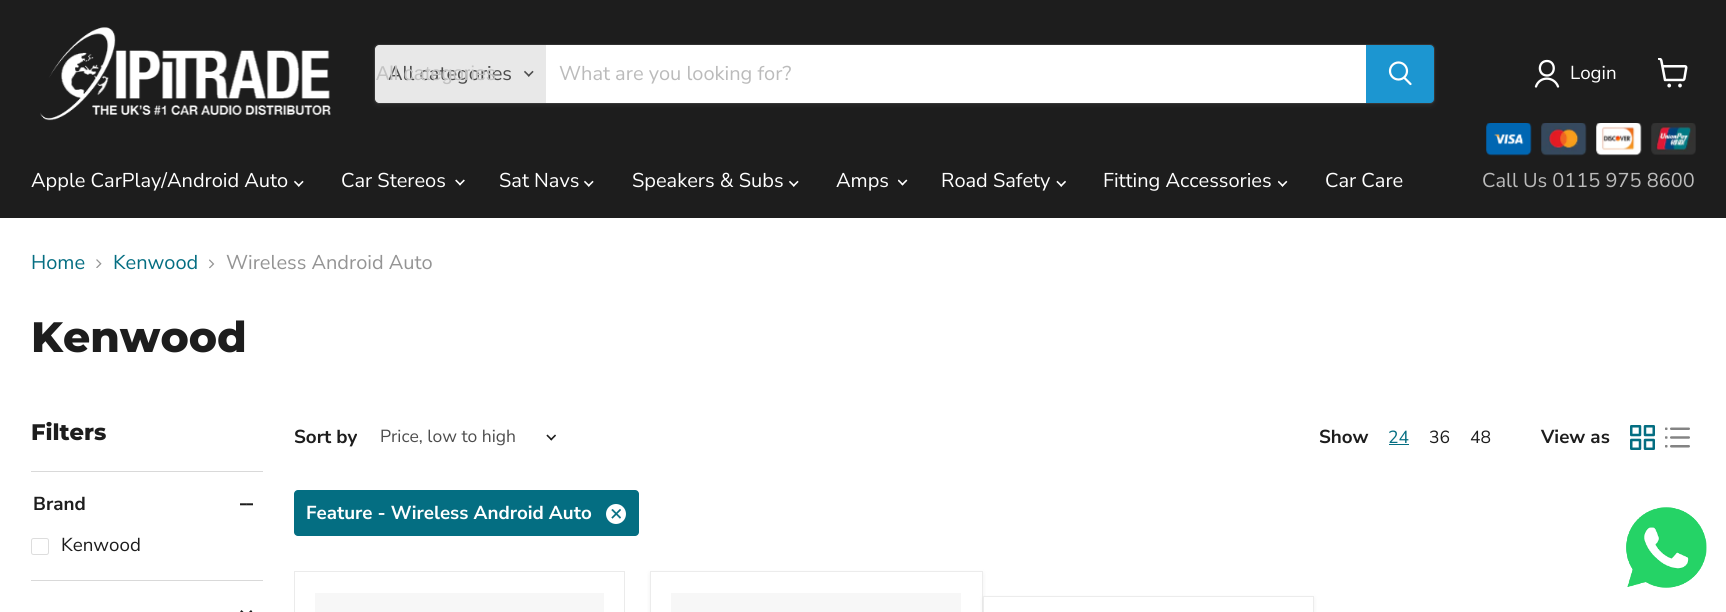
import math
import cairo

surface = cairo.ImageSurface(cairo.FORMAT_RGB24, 1726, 612)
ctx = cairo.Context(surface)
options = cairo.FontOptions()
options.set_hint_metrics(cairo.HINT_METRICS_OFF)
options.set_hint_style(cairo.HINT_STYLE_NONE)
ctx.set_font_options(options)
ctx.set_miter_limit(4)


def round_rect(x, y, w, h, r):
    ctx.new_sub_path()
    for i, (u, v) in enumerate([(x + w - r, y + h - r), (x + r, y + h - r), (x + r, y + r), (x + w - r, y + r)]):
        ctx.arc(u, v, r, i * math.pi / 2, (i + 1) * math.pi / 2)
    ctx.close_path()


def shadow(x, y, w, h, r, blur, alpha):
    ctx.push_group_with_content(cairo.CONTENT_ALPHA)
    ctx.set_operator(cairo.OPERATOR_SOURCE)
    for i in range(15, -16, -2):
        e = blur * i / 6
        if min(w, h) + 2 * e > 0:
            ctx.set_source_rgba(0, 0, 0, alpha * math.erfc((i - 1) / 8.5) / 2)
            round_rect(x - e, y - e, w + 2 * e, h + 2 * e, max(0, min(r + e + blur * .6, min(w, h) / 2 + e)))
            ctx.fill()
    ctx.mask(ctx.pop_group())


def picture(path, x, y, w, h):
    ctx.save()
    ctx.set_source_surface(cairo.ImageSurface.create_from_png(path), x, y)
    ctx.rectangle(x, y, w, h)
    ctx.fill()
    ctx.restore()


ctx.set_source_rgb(1, 1, 1)
ctx.paint()
ctx.set_source_rgb(0.114, 0.114, 0.114)
ctx.rectangle(0, 0, 1726, 218)
ctx.fill()
picture("img1.png", 40, 27, 291, 94)
ctx.set_source_rgb(0.502, 0.502, 0.502)
shadow(374, 46, 1061, 60, 5, 2, 0.11)
round_rect(374.5, 44.5, 1060, 59, 4.5)
ctx.set_source_rgba(0.502, 0.502, 0.502, 0.2)
ctx.set_line_width(1)
ctx.stroke()
ctx.set_source_rgb(0.91, 0.91, 0.91)
ctx.new_path()
ctx.move_to(379, 45)
ctx.line_to(546, 45)
ctx.line_to(546, 103)
ctx.line_to(379, 103)
ctx.curve_to(377, 103, 375, 101, 375, 99)
ctx.line_to(375, 49)
ctx.curve_to(375, 47, 377, 45, 379, 45)
ctx.close_path()
ctx.fill()
ctx.select_font_face("Nunito Sans")
ctx.set_font_size(20)
ctx.set_source_rgb(0.302, 0.302, 0.302)
ctx.move_to(388, 80)
ctx.show_text("All categories")
ctx.select_font_face("Liberation Sans")
ctx.set_source_rgb(0.761, 0.761, 0.761)
ctx.move_to(376, 80)
ctx.show_text("All categories")
picture("img2.png", 524, 70, 10, 7)
ctx.set_source_rgb(1, 1, 1)
ctx.rectangle(546, 45, 820, 58)
ctx.fill()
ctx.select_font_face("Nunito Sans")
ctx.set_source_rgb(0.733, 0.733, 0.733)
ctx.move_to(559, 80)
ctx.show_text("What are you looking for?")
ctx.set_source_rgb(0.11, 0.588, 0.82)
ctx.new_path()
ctx.move_to(1366.5, 45.5)
ctx.line_to(1430, 45.5)
ctx.curve_to(1432, 45.5, 1433.5, 47, 1433.5, 49)
ctx.line_to(1433.5, 99)
ctx.curve_to(1433.5, 101, 1432, 102.5, 1430, 102.5)
ctx.line_to(1366.5, 102.5)
ctx.close_path()
ctx.fill_preserve()
ctx.stroke()
ctx.new_path()
ctx.move_to(1410.5, 84)
ctx.line_to(1404.5, 78)
ctx.set_source_rgb(1, 1, 1)
ctx.set_line_width(2.2)
ctx.set_line_cap(cairo.LINE_CAP_ROUND)
ctx.stroke()
ctx.arc(1398.5, 71, 8.5, 0, 2 * math.pi)
ctx.set_line_cap(cairo.LINE_CAP_BUTT)
ctx.stroke()
ctx.new_path()
ctx.move_to(1547, 75.5)
ctx.curve_to(1556, 75.5, 1556, 61, 1547, 61)
ctx.curve_to(1537.5, 61, 1537.5, 75.5, 1547, 75.5)
ctx.close_path()
ctx.move_to(1558, 86.5)
ctx.curve_to(1554, 76, 1539.5, 76, 1536, 86.5)
ctx.set_line_width(2.3)
ctx.set_line_cap(cairo.LINE_CAP_ROUND)
ctx.set_line_join(cairo.LINE_JOIN_ROUND)
ctx.stroke()
ctx.set_font_size(18.75)
ctx.move_to(1570, 79)
ctx.show_text("Login")
picture("img3.png", 1658, 58, 30, 30)
picture("img4.png", 1486, 123, 46, 33)
picture("img5.png", 1541, 123, 46, 33)
picture("img6.png", 1596, 123, 46, 33)
picture("img7.png", 1651, 123, 45, 32)
ctx.set_font_size(20)
ctx.move_to(31, 187)
ctx.show_text("Apple CarPlay/Android Auto")
picture("img8.png", 294, 180, 10, 7)
ctx.move_to(341, 187)
ctx.show_text("Car Stereos")
picture("img9.png", 455, 179, 10, 7)
ctx.move_to(499, 187)
ctx.show_text("Sat Navs")
picture("img8.png", 584, 180, 10, 7)
ctx.move_to(632, 187)
ctx.show_text("Speakers & Subs")
picture("img8.png", 789, 180, 10, 7)
ctx.move_to(836, 187)
ctx.show_text("Amps")
picture("img10.png", 898, 179, 10, 7)
ctx.move_to(941, 187)
ctx.show_text("Road Safety")
picture("img11.png", 1056, 180, 10, 7)
ctx.move_to(1103, 187)
ctx.show_text("Fitting Accessories")
picture("img12.png", 1278, 180, 10, 7)
ctx.move_to(1325, 187)
ctx.show_text("Car Care")
ctx.set_source_rgb(0.733, 0.733, 0.733)
ctx.move_to(1482, 187)
ctx.show_text("Call Us 0115 975 8600")
ctx.set_source_rgb(0.016, 0.431, 0.51)
ctx.move_to(31, 269)
ctx.show_text("Home")
picture("img13.png", 96, 259, 6, 9)
ctx.move_to(113, 269)
ctx.show_text("Kenwood")
picture("img14.png", 209, 259, 6, 10)
ctx.set_source_rgb(0.58, 0.58, 0.58)
ctx.move_to(226, 269)
ctx.show_text("Wireless Android Auto")
ctx.select_font_face("Montserrat ExtraBold")
ctx.set_font_size(42.5)
ctx.set_source_rgb(0.114, 0.114, 0.114)
ctx.move_to(31, 352)
ctx.show_text("Kenwood")
ctx.set_font_size(22.5)
ctx.move_to(31, 440)
ctx.show_text("Filters")
ctx.set_source_rgb(0.851, 0.851, 0.851)
ctx.rectangle(31, 471, 232, 1)
ctx.fill()
ctx.select_font_face("Nunito Sans", cairo.FONT_SLANT_NORMAL, cairo.FONT_WEIGHT_BOLD)
ctx.set_font_size(18.75)
ctx.set_source_rgb(0.114, 0.114, 0.114)
ctx.move_to(33, 510)
ctx.show_text("Brand")
picture("img15.png", 240, 503, 13, 3)
round_rect(31.5, 538.5, 17, 16, 2)
ctx.set_source_rgb(0.867, 0.867, 0.867)
ctx.set_line_width(1)
ctx.set_line_cap(cairo.LINE_CAP_BUTT)
ctx.set_line_join(cairo.LINE_JOIN_MITER)
ctx.stroke()
ctx.select_font_face("Nunito Sans")
ctx.set_source_rgb(0.114, 0.114, 0.114)
ctx.move_to(61, 551)
ctx.show_text("Kenwood")
ctx.set_source_rgb(0.851, 0.851, 0.851)
ctx.rectangle(31, 580, 232, 1)
ctx.fill()
picture("img16.png", 240, 610, 13, 2)
ctx.select_font_face("Nunito Sans", cairo.FONT_SLANT_NORMAL, cairo.FONT_WEIGHT_BOLD)
ctx.set_source_rgb(0.114, 0.114, 0.114)
ctx.move_to(294, 443)
ctx.show_text("Sort by")
ctx.select_font_face("Nunito Sans")
ctx.set_font_size(17.5)
ctx.set_source_rgb(0.302, 0.302, 0.302)
ctx.move_to(380, 442)
ctx.show_text("Price, low to high")
picture("img17.png", 546, 434, 10, 7)
ctx.select_font_face("Nunito Sans", cairo.FONT_SLANT_NORMAL, cairo.FONT_WEIGHT_BOLD)
ctx.set_font_size(18.75)
ctx.set_source_rgb(0.114, 0.114, 0.114)
ctx.move_to(1319, 443)
ctx.show_text("Show")
ctx.select_font_face("Nunito Sans")
ctx.set_font_size(17.5)
ctx.set_source_rgb(0.016, 0.431, 0.51)
ctx.move_to(1388, 443)
ctx.show_text("24")
ctx.rectangle(1389, 444, 20, 1)
ctx.fill()
ctx.set_source_rgb(0.114, 0.114, 0.114)
ctx.move_to(1429, 443)
ctx.show_text("36")
ctx.move_to(1470, 443)
ctx.show_text("48")
ctx.select_font_face("Nunito Sans", cairo.FONT_SLANT_NORMAL, cairo.FONT_WEIGHT_BOLD)
ctx.set_font_size(18.75)
ctx.move_to(1541, 443)
ctx.show_text("View as")
picture("img18.png", 1630, 425, 25, 25)
picture("img19.png", 1665, 427, 25, 21)
ctx.set_source_rgb(0.016, 0.431, 0.51)
round_rect(294, 490, 345, 46, 4)
ctx.fill()
ctx.set_source_rgb(1, 1, 1)
ctx.move_to(306, 519)
ctx.show_text("Feature - Wireless Android Auto")
ctx.new_path()
ctx.arc(616, 514, 10, 0, 2 * math.pi)
ctx.fill()
picture("img20.png", 611, 509, 10, 10)
ctx.rectangle(294.5, 571.5, 330, 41)
ctx.set_source_rgb(0.918, 0.918, 0.918)
ctx.stroke()
ctx.set_source_rgb(0.965, 0.965, 0.965)
ctx.rectangle(315, 593, 289, 19)
ctx.fill()
ctx.set_source_rgb(0.502, 0.502, 0.502)
shadow(650, 573, 333, 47, 0, 2.5, 0.11)
ctx.set_source_rgb(1, 1, 1)
ctx.rectangle(650.5, 571.5, 332, 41)
ctx.fill_preserve()
ctx.set_source_rgb(0.922, 0.922, 0.922)
ctx.stroke()
ctx.set_source_rgb(0.965, 0.965, 0.965)
ctx.rectangle(671, 593, 290, 19)
ctx.fill()
ctx.set_source_rgb(0.502, 0.502, 0.502)
shadow(983, 598, 331, 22, 0, 2.5, 0.11)
ctx.set_source_rgb(1, 1, 1)
ctx.rectangle(983.5, 596.5, 330, 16)
ctx.fill_preserve()
ctx.set_source_rgb(0.922, 0.922, 0.922)
ctx.stroke()
picture("img21.png", 1626, 507, 81, 81)
picture("img22.png", 1626, 507, 81, 81)
surface.write_to_png("page.png")
